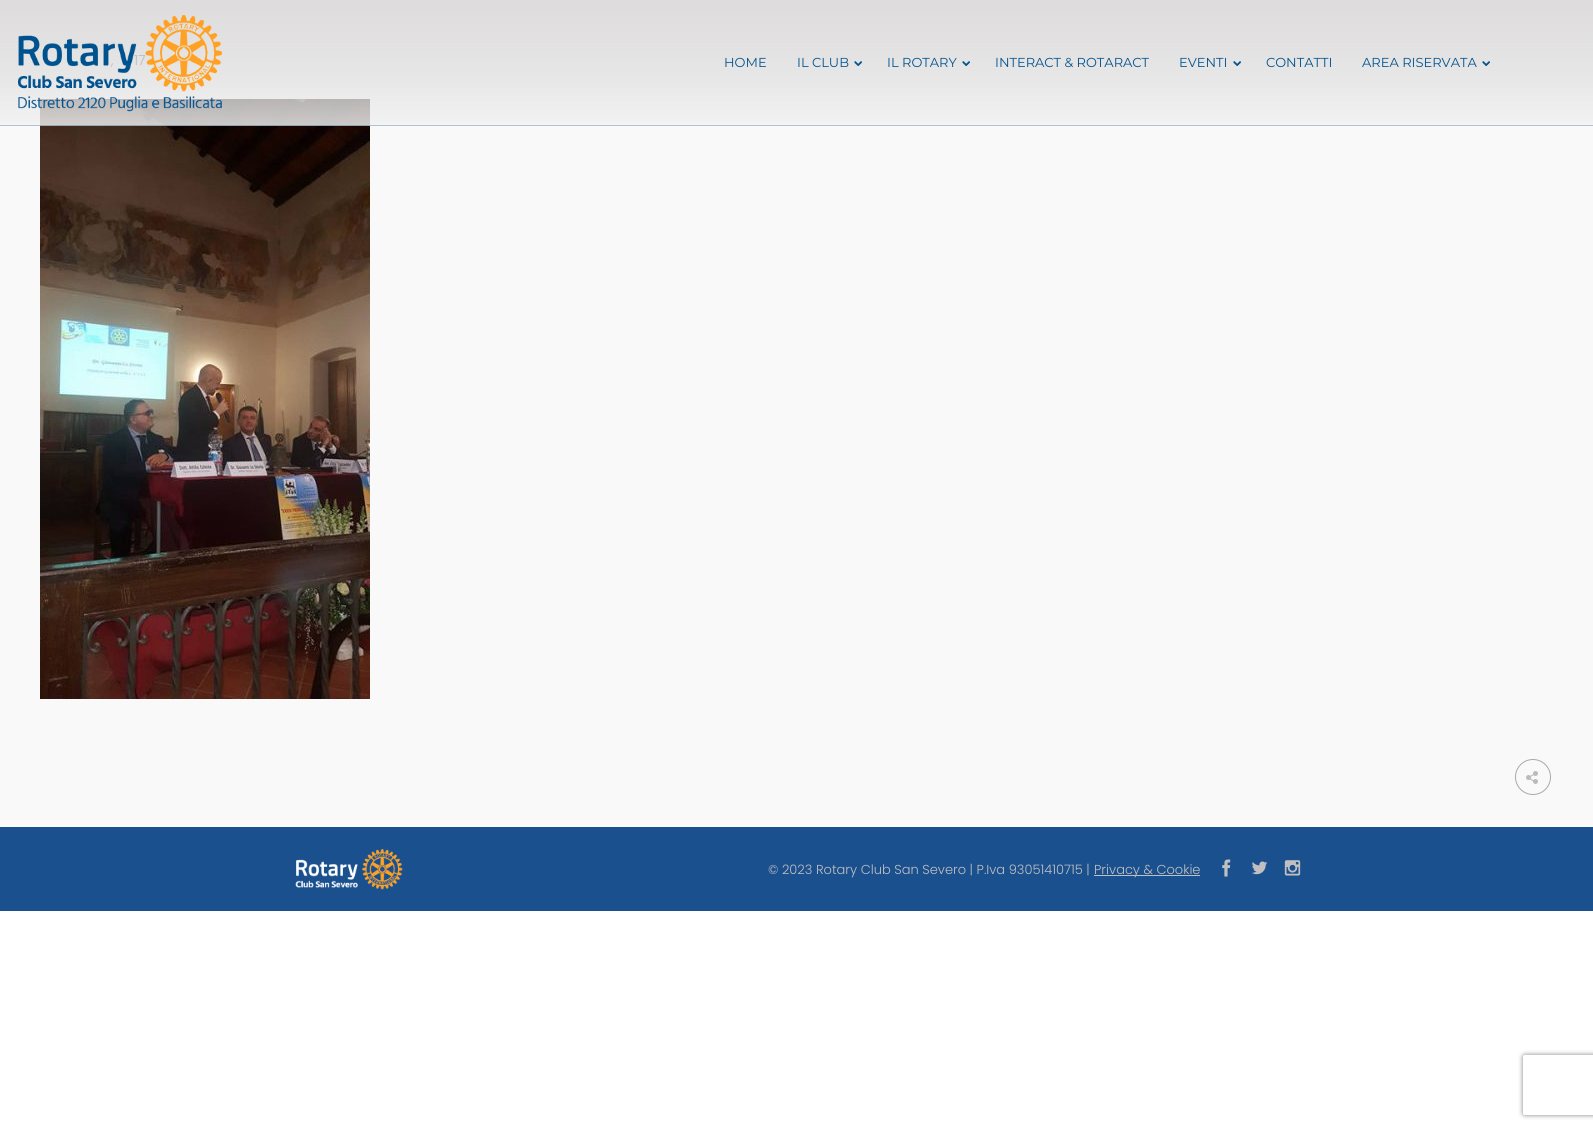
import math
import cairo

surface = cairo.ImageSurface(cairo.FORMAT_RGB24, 1593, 1129)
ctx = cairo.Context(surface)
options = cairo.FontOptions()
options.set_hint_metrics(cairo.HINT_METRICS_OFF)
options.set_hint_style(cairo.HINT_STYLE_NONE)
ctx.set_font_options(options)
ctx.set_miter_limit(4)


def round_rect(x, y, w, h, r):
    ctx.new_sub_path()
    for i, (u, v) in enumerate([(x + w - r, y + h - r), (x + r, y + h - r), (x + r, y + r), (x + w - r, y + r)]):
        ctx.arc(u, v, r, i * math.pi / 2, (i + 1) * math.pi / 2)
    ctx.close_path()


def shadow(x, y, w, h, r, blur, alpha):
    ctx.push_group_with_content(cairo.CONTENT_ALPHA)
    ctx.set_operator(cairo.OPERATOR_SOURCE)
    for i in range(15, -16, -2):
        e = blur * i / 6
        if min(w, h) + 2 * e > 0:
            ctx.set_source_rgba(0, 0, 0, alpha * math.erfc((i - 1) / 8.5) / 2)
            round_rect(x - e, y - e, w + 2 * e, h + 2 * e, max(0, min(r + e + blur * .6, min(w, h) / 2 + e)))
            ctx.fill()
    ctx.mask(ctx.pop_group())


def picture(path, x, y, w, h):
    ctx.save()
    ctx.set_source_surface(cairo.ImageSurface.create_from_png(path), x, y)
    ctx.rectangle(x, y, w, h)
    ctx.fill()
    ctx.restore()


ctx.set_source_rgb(1, 1, 1)
ctx.paint()
ctx.set_source_rgb(0.976, 0.976, 0.976)
ctx.rectangle(0, 0, 1593, 827)
ctx.fill()
ctx.select_font_face("Poppins Light")
ctx.set_font_size(14)
ctx.set_source_rgb(0.467, 0.467, 0.467)
ctx.move_to(134, 65)
ctx.show_text("17")
ctx.move_to(111, 65)
ctx.show_text(",")
picture("img1.png", 40, 99, 330, 600)
picture("img2.png", 1515, 759, 36, 36)
gradient = cairo.LinearGradient(797, 0, 797, 500)
gradient.add_color_stop_rgba(0, 0.784, 0.773, 0.773, 0.55)
gradient.add_color_stop_rgba(0.33, 1, 1, 1, 0.92)
gradient.add_color_stop_rgba(0.66, 1, 1, 1, 1)
gradient.add_color_stop_rgba(1, 1, 1, 1, 0.5)
ctx.set_source(gradient)
ctx.rectangle(0, 0, 1593, 126)
ctx.fill()
ctx.set_source_rgba(0.012, 0.329, 0.561, 0.3)
ctx.rectangle(0, 125, 1593, 1)
ctx.fill()
picture("img3.png", 18, 15, 204, 97)
ctx.select_font_face("Montserrat")
ctx.set_font_size(13)
ctx.set_source_rgb(0.012, 0.329, 0.561)
ctx.move_to(724, 67)
ctx.show_text("HOME")
ctx.move_to(797, 67)
ctx.show_text("IL CLUB")
picture("img4.png", 854, 61, 8, 5)
ctx.move_to(887, 67)
ctx.show_text("IL ROTARY")
picture("img4.png", 962, 61, 8, 5)
ctx.move_to(995, 67)
ctx.show_text("INTERACT & ROTARACT")
ctx.move_to(1179, 67)
ctx.show_text("EVENTI")
picture("img4.png", 1233, 61, 8, 5)
ctx.move_to(1266, 67)
ctx.show_text("CONTATTI")
ctx.move_to(1362, 67)
ctx.show_text("AREA RISERVATA")
picture("img4.png", 1482, 61, 8, 5)
ctx.set_source_rgb(0.106, 0.314, 0.561)
ctx.rectangle(0, 827, 1593, 84)
ctx.fill()
picture("img5.png", 295, 849, 108, 41)
ctx.select_font_face("Poppins Light")
ctx.set_source_rgb(0.753, 0.753, 0.753)
ctx.move_to(768, 874)
ctx.show_text("© 2023 Rotary Club San Severo | P.Iva 93051410715 |")
ctx.rectangle(1094, 875, 106, 1)
ctx.fill()
ctx.move_to(1094, 874)
ctx.show_text("Privacy & Cookie")
picture("img6.png", 1222, 859, 9, 18)
picture("img7.png", 1252, 861, 16, 14)
picture("img8.png", 1284, 860, 17, 16)
ctx.save()
ctx.set_fill_rule(cairo.FILL_RULE_EVEN_ODD)
ctx.new_path()
ctx.move_to(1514, 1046)
ctx.line_to(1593, 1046)
ctx.line_to(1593, 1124)
ctx.line_to(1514, 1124)
ctx.close_path()
ctx.move_to(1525, 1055)
ctx.line_to(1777, 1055)
ctx.curve_to(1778, 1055, 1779, 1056, 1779, 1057)
ctx.line_to(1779, 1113)
ctx.curve_to(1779, 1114, 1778, 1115, 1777, 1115)
ctx.line_to(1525, 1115)
ctx.curve_to(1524, 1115, 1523, 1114, 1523, 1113)
ctx.line_to(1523, 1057)
ctx.curve_to(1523, 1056, 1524, 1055, 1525, 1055)
ctx.close_path()
ctx.clip()
ctx.set_source_rgb(0.502, 0.502, 0.502)
shadow(1523, 1055, 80, 60, 2, 2.5, 1)
ctx.restore()
surface.write_to_png("page.png")
